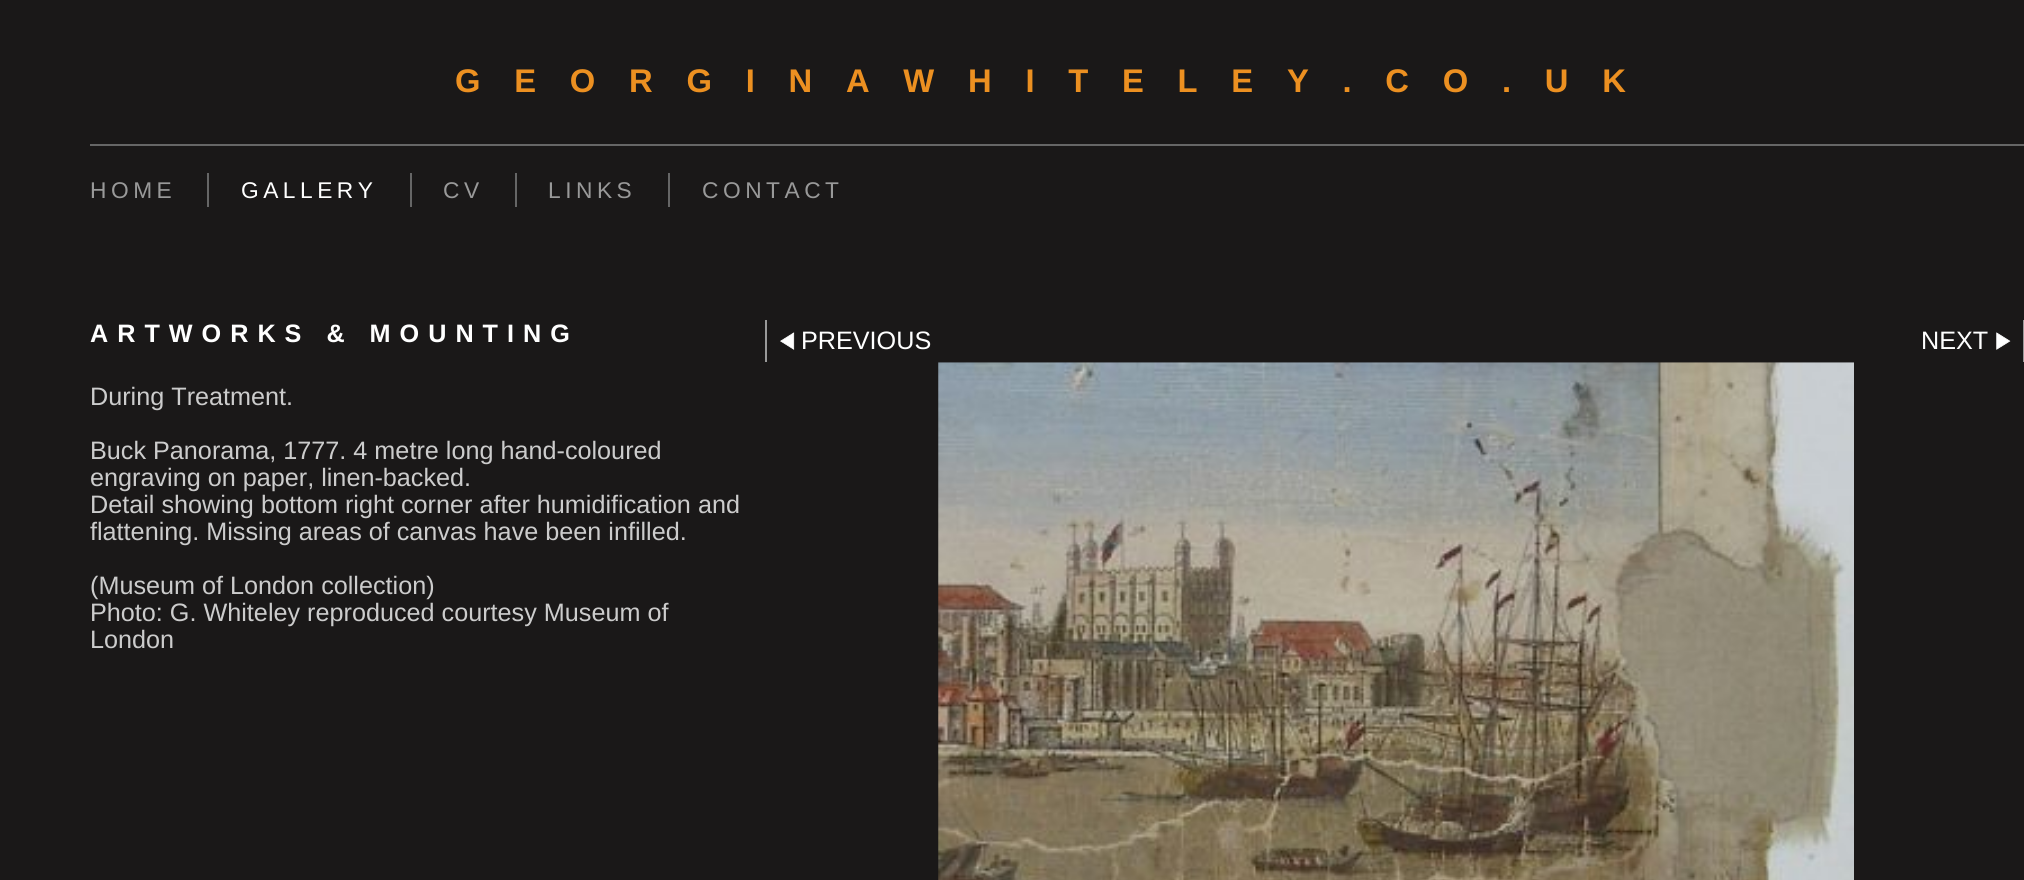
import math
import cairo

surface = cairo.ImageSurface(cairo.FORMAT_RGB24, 2024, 880)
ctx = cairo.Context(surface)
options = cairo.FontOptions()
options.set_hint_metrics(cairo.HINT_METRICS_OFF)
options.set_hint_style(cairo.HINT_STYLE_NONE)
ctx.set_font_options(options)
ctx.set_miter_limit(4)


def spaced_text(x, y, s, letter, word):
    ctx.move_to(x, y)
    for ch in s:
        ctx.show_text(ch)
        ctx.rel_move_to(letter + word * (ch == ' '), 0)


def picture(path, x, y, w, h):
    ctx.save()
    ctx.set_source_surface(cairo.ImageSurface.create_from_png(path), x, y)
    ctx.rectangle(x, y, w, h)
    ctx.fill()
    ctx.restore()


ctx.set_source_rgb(0.102, 0.094, 0.094)
ctx.paint()
ctx.set_source_rgb(0.4, 0.4, 0.4)
ctx.rectangle(90, 144, 1934, 2)
ctx.fill()
ctx.select_font_face("Liberation Sans", cairo.FONT_SLANT_NORMAL, cairo.FONT_WEIGHT_BOLD)
ctx.set_font_size(32.75)
ctx.set_source_rgb(0.922, 0.565, 0.129)
spaced_text(455, 92, "GEORGINAWHITELEY.CO.UK", 33.75, 0)
ctx.select_font_face("Liberation Sans")
ctx.set_font_size(22.75)
ctx.set_source_rgb(0.6, 0.6, 0.6)
spaced_text(90, 198, "HOME", 4.5, 0)
ctx.set_source_rgb(0.4, 0.4, 0.4)
ctx.rectangle(207, 173, 2, 34)
ctx.fill()
ctx.set_source_rgb(1, 1, 1)
spaced_text(241, 198, "GALLERY", 4.5, 0)
ctx.set_source_rgb(0.4, 0.4, 0.4)
ctx.rectangle(410, 173, 2, 34)
ctx.fill()
ctx.set_source_rgb(0.6, 0.6, 0.6)
spaced_text(443, 198, "CV", 4.5, 0)
ctx.set_source_rgb(0.4, 0.4, 0.4)
ctx.rectangle(515, 173, 2, 34)
ctx.fill()
ctx.set_source_rgb(0.6, 0.6, 0.6)
spaced_text(548, 198, "LINKS", 4.5, 0)
ctx.set_source_rgb(0.4, 0.4, 0.4)
ctx.rectangle(668, 173, 2, 34)
ctx.fill()
ctx.set_source_rgb(0.6, 0.6, 0.6)
spaced_text(702, 198, "CONTACT", 4.5, 0)
ctx.select_font_face("Liberation Sans", cairo.FONT_SLANT_NORMAL, cairo.FONT_WEIGHT_BOLD)
ctx.set_font_size(25.2)
ctx.set_source_rgb(1, 1, 1)
spaced_text(90, 342, "ARTWORKS & MOUNTING", 9, 0)
ctx.select_font_face("Liberation Sans")
ctx.set_source_rgb(0.8, 0.8, 0.8)
ctx.move_to(90, 405)
ctx.show_text("During Treatment.")
ctx.move_to(90, 459)
ctx.show_text("Buck Panorama, 1777. 4 metre long hand-coloured")
ctx.move_to(90, 486)
ctx.show_text("engraving on paper, linen-backed.")
ctx.move_to(90, 513)
ctx.show_text("Detail showing bottom right corner after humidification and")
ctx.move_to(90, 540)
ctx.show_text("flattening. Missing areas of canvas have been infilled.")
ctx.move_to(90, 594)
ctx.show_text("(Museum of London collection)")
ctx.move_to(90, 621)
ctx.show_text("Photo: G. Whiteley reproduced courtesy Museum of")
ctx.move_to(90, 648)
ctx.show_text("London")
ctx.set_source_rgb(0.6, 0.6, 0.6)
ctx.rectangle(765, 320, 2, 42)
ctx.fill()
picture("img1.png", 780, 332, 15, 18)
ctx.set_source_rgb(1, 1, 1)
ctx.move_to(801, 349)
ctx.show_text("PREVIOUS")
ctx.set_source_rgb(0.6, 0.6, 0.6)
ctx.rectangle(2023, 320, 1, 42)
ctx.fill()
ctx.set_source_rgb(1, 1, 1)
ctx.move_to(1921, 349)
ctx.show_text("NEXT")
picture("img2.png", 1996, 332, 15, 18)
picture("img3.png", 938, 362, 916, 518)
surface.write_to_png("page.png")
